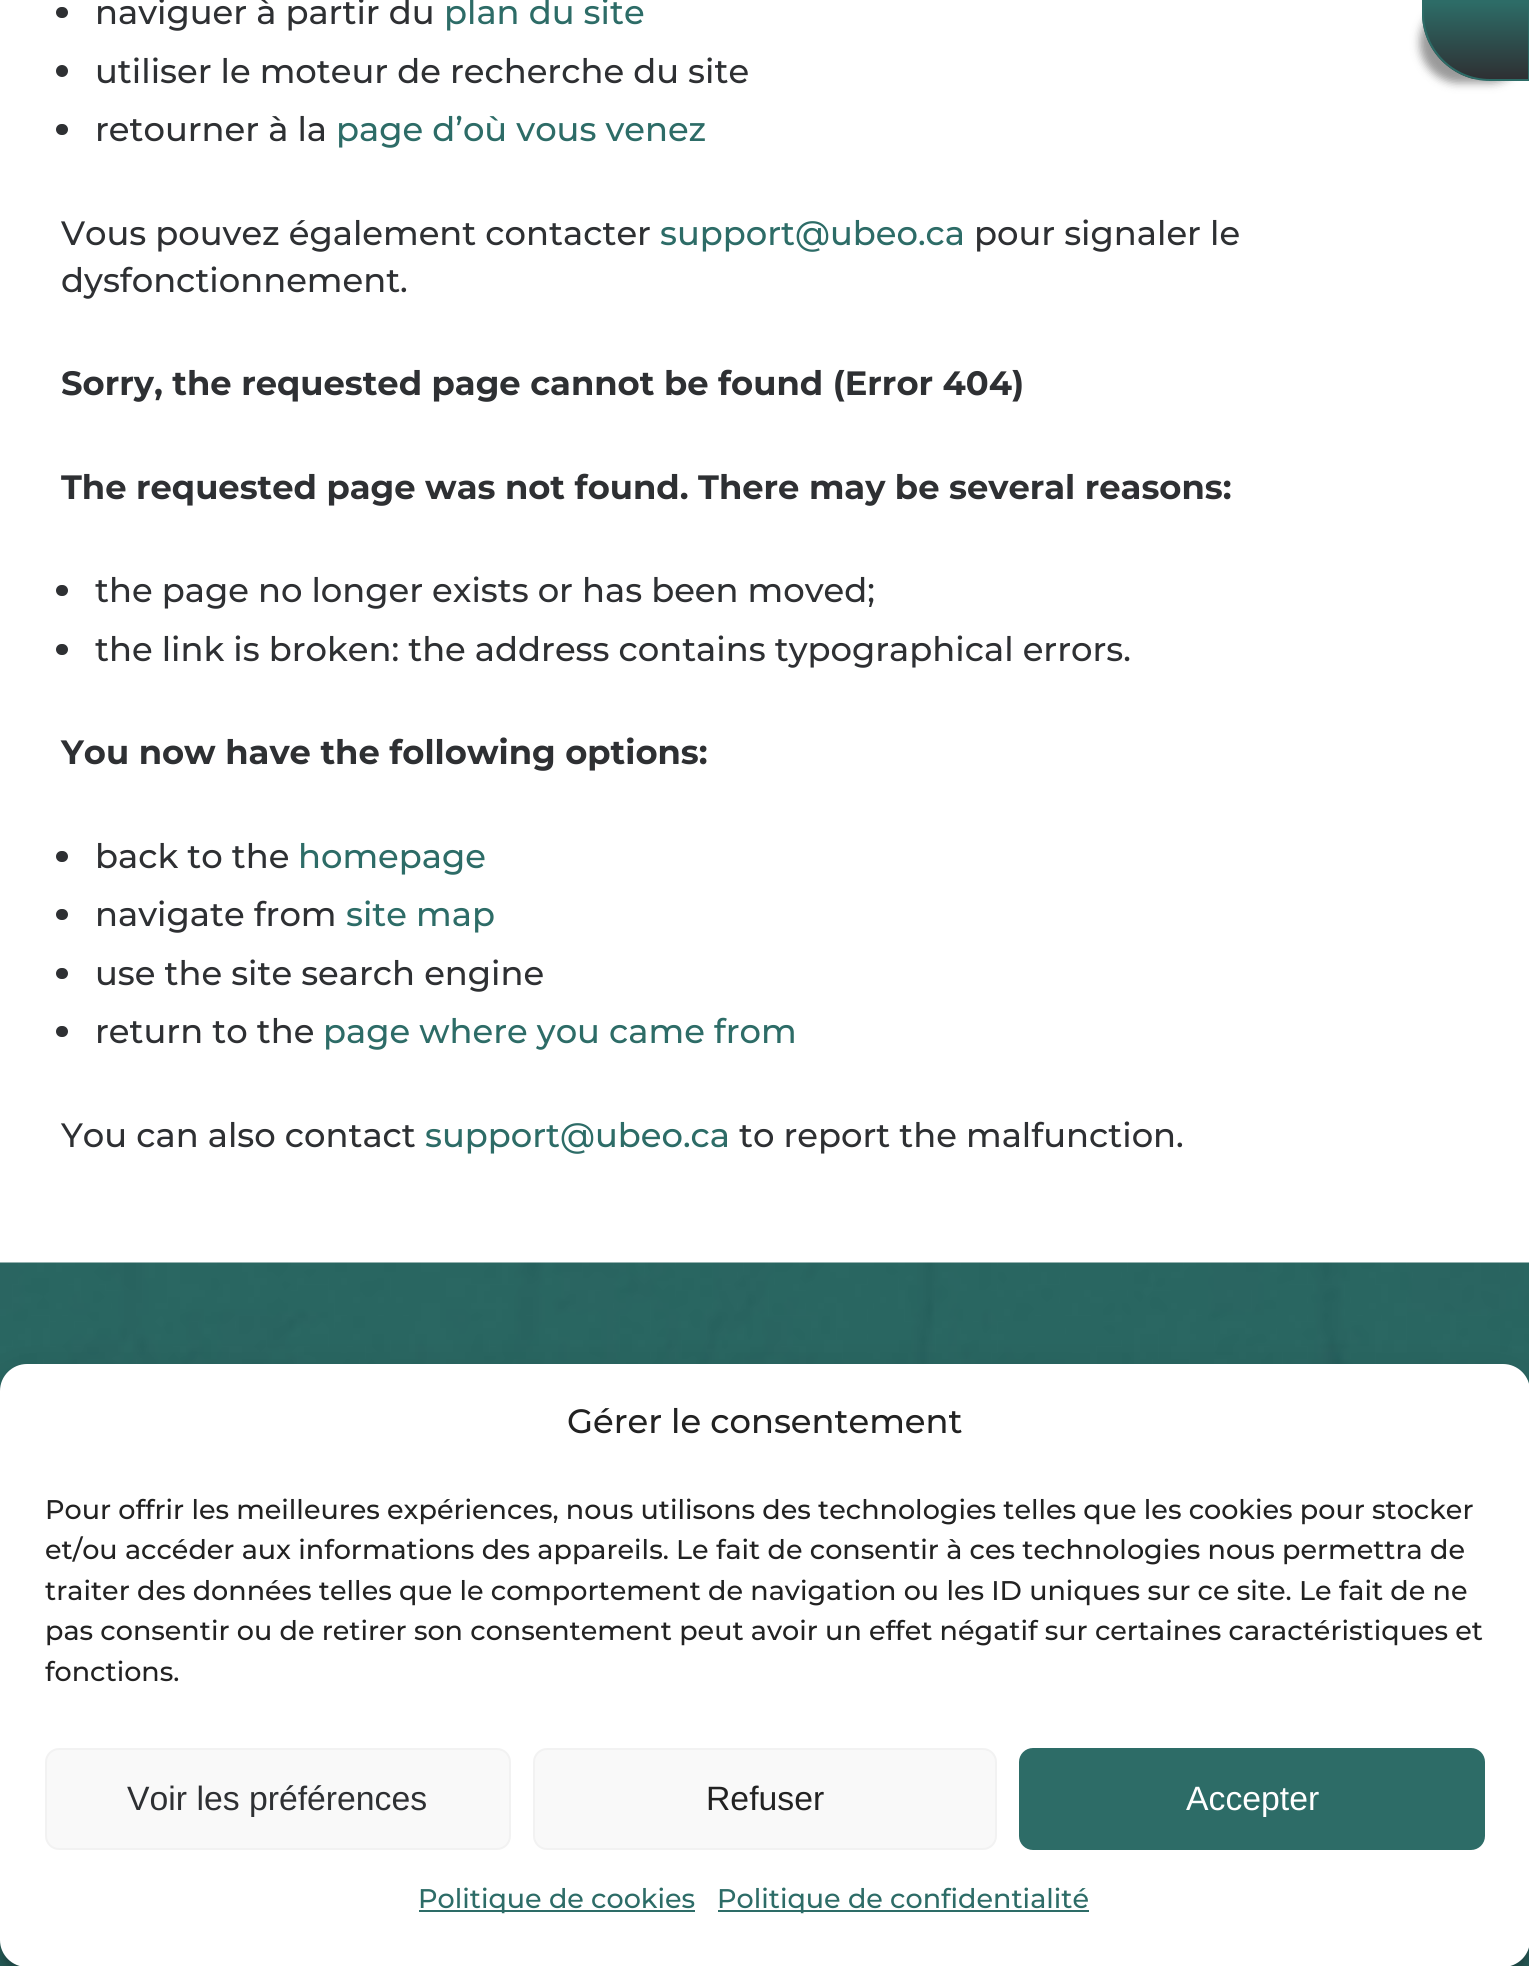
import math
import cairo

surface = cairo.ImageSurface(cairo.FORMAT_RGB24, 1529, 1966)
ctx = cairo.Context(surface)
options = cairo.FontOptions()
options.set_hint_metrics(cairo.HINT_METRICS_OFF)
options.set_hint_style(cairo.HINT_STYLE_NONE)
ctx.set_font_options(options)
ctx.set_miter_limit(4)


def round_rect(x, y, w, h, r):
    ctx.new_sub_path()
    for i, (u, v) in enumerate([(x + w - r, y + h - r), (x + r, y + h - r), (x + r, y + r), (x + w - r, y + r)]):
        ctx.arc(u, v, r, i * math.pi / 2, (i + 1) * math.pi / 2)
    ctx.close_path()


def shadow(x, y, w, h, r, blur, alpha):
    ctx.push_group_with_content(cairo.CONTENT_ALPHA)
    ctx.set_operator(cairo.OPERATOR_SOURCE)
    for i in range(15, -16, -2):
        e = blur * i / 6
        if min(w, h) + 2 * e > 0:
            ctx.set_source_rgba(0, 0, 0, alpha * math.erfc((i - 1) / 8.5) / 2)
            round_rect(x - e, y - e, w + 2 * e, h + 2 * e, max(0, min(r + e + blur * .6, min(w, h) / 2 + e)))
            ctx.fill()
    ctx.mask(ctx.pop_group())


def picture(path, x, y, w, h):
    ctx.save()
    ctx.set_source_surface(cairo.ImageSurface.create_from_png(path), x, y)
    ctx.rectangle(x, y, w, h)
    ctx.fill()
    ctx.restore()


ctx.set_source_rgb(1, 1, 1)
ctx.paint()
ctx.set_source_rgb(0.18, 0.188, 0.2)
round_rect(56, 7, 12, 11, 5.5)
ctx.fill()
ctx.select_font_face("Montserrat Medium")
ctx.set_font_size(33.75)
ctx.move_to(95, 24)
ctx.show_text("naviguer à partir du")
ctx.set_source_rgb(0.176, 0.424, 0.404)
ctx.move_to(444, 24)
ctx.show_text("plan du site")
ctx.set_source_rgb(0.18, 0.188, 0.2)
ctx.new_path()
ctx.arc(62, 71, 6, 0, 2 * math.pi)
ctx.fill()
ctx.move_to(95, 83)
ctx.show_text("utiliser le moteur de recherche du site")
round_rect(56, 124, 12, 11, 5.5)
ctx.fill()
ctx.move_to(95, 141)
ctx.show_text("retourner à la")
ctx.set_source_rgb(0.176, 0.424, 0.404)
ctx.move_to(336, 141)
ctx.show_text("page d’où vous venez")
ctx.set_source_rgb(0.18, 0.188, 0.2)
ctx.move_to(61, 245)
ctx.show_text("Vous pouvez également contacter")
ctx.set_source_rgb(0.176, 0.424, 0.404)
ctx.move_to(660, 245)
ctx.show_text("support@ubeo.ca")
ctx.set_source_rgb(0.18, 0.188, 0.2)
ctx.move_to(974, 245)
ctx.show_text("pour signaler le")
ctx.move_to(61, 292)
ctx.show_text("dysfonctionnement.")
ctx.select_font_face("Montserrat", cairo.FONT_SLANT_NORMAL, cairo.FONT_WEIGHT_BOLD)
ctx.move_to(61, 395)
ctx.show_text("Sorry, the requested page cannot be found (Error 404)")
ctx.move_to(61, 499)
ctx.show_text("The requested page was not found. There may be several reasons:")
round_rect(56, 585, 12, 11, 5.5)
ctx.fill()
ctx.select_font_face("Montserrat Medium")
ctx.move_to(95, 602)
ctx.show_text("the page no longer exists or has been moved;")
round_rect(56, 644, 12, 11, 5.5)
ctx.fill()
ctx.move_to(95, 661)
ctx.show_text("the link is broken: the address contains typographical errors.")
ctx.select_font_face("Montserrat", cairo.FONT_SLANT_NORMAL, cairo.FONT_WEIGHT_BOLD)
ctx.move_to(61, 764)
ctx.show_text("You now have the following options:")
round_rect(56, 851, 12, 11, 5.5)
ctx.fill()
ctx.select_font_face("Montserrat Medium")
ctx.move_to(95, 868)
ctx.show_text("back to the")
ctx.set_source_rgb(0.176, 0.424, 0.404)
ctx.move_to(298, 868)
ctx.show_text("homepage")
ctx.set_source_rgb(0.18, 0.188, 0.2)
round_rect(56, 909, 12, 11, 5.5)
ctx.fill()
ctx.move_to(95, 926)
ctx.show_text("navigate from")
ctx.set_source_rgb(0.176, 0.424, 0.404)
ctx.move_to(346, 926)
ctx.show_text("site map")
ctx.set_source_rgb(0.18, 0.188, 0.2)
round_rect(56, 968, 12, 11, 5.5)
ctx.fill()
ctx.move_to(95, 985)
ctx.show_text("use the site search engine")
round_rect(56, 1026, 12, 11, 5.5)
ctx.fill()
ctx.move_to(95, 1043)
ctx.show_text("return to the")
ctx.set_source_rgb(0.176, 0.424, 0.404)
ctx.move_to(323, 1043)
ctx.show_text("page where you came from")
ctx.set_source_rgb(0.18, 0.188, 0.2)
ctx.move_to(61, 1147)
ctx.show_text("You can also contact")
ctx.set_source_rgb(0.176, 0.424, 0.404)
ctx.move_to(425, 1147)
ctx.show_text("support@ubeo.ca")
ctx.set_source_rgb(0.18, 0.188, 0.2)
ctx.move_to(739, 1147)
ctx.show_text("to report the malfunction.")
ctx.set_source_rgb(0, 0, 0)
shadow(1420, 2, 108, 81, 68, 4.5, 0.4)
ctx.save()
ctx.new_path()
ctx.move_to(1422, 0)
ctx.line_to(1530, 0)
ctx.line_to(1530, 81)
ctx.line_to(1490, 81)
ctx.curve_to(1452.5, 81, 1422, 50.5, 1422, 13)
ctx.close_path()
ctx.clip()
gradient = cairo.LinearGradient(1476, 2.2, 1476, 79)
gradient.add_color_stop_rgba(0, 0.176, 0.424, 0.404, 1)
gradient.add_color_stop_rgba(1, 0.18, 0.188, 0.2, 1)
ctx.set_source(gradient)
ctx.rectangle(1422, 2, 106, 77)
ctx.fill()
ctx.restore()
ctx.new_path()
ctx.move_to(1423, 1)
ctx.line_to(1529, 1)
ctx.line_to(1529, 80)
ctx.line_to(1490, 80)
ctx.curve_to(1453, 80, 1423, 50, 1423, 13)
ctx.close_path()
ctx.set_source_rgb(0.176, 0.424, 0.404)
ctx.stroke()
picture("img1.png", 0, 1262, 1529, 704)
ctx.set_source_rgb(0, 0, 0)
shadow(0, 1377, 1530, 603, 27, 7, 0.23)
shadow(0, 1386, 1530, 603, 27, 22.5, 0.19)
ctx.set_source_rgb(1, 1, 1)
round_rect(0, 1364, 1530, 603, 27)
ctx.fill()
ctx.set_source_rgb(0.133, 0.133, 0.133)
ctx.move_to(567, 1433)
ctx.show_text("Gérer le consentement")
ctx.set_font_size(27)
ctx.move_to(45, 1519)
ctx.show_text("Pour offrir les meilleures expériences, nous utilisons des technologies telles que les cookies pour stocker")
ctx.move_to(45, 1559)
ctx.show_text("et/ou accéder aux informations des appareils. Le fait de consentir à ces technologies nous permettra de")
ctx.move_to(45, 1600)
ctx.show_text("traiter des données telles que le comportement de navigation ou les ID uniques sur ce site. Le fait de ne")
ctx.move_to(45, 1640)
ctx.show_text("pas consentir ou de retirer son consentement peut avoir un effet négatif sur certaines caractéristiques et")
ctx.move_to(45, 1681)
ctx.show_text("fonctions.")
ctx.set_source_rgb(0.976, 0.976, 0.976)
round_rect(46, 1749, 464, 100, 13)
ctx.fill_preserve()
ctx.set_source_rgb(0.949, 0.949, 0.949)
ctx.stroke()
ctx.select_font_face("Liberation Sans")
ctx.set_font_size(33.75)
ctx.set_source_rgb(0.18, 0.188, 0.2)
ctx.move_to(127, 1810)
ctx.show_text("Voir les préférences")
ctx.set_source_rgb(0.976, 0.976, 0.976)
round_rect(534, 1749, 462, 100, 13)
ctx.fill_preserve()
ctx.set_source_rgb(0.949, 0.949, 0.949)
ctx.stroke()
ctx.set_source_rgb(0.133, 0.133, 0.133)
ctx.move_to(706, 1810)
ctx.show_text("Refuser")
ctx.set_source_rgb(0.176, 0.424, 0.404)
round_rect(1020, 1749, 464, 100, 13)
ctx.fill_preserve()
ctx.stroke()
ctx.set_source_rgb(1, 1, 1)
ctx.move_to(1186, 1810)
ctx.show_text("Accepter")
ctx.set_source_rgb(0.176, 0.424, 0.404)
ctx.rectangle(419, 1910, 276, 2)
ctx.fill()
ctx.select_font_face("Montserrat Medium")
ctx.set_font_size(27)
ctx.move_to(418, 1908)
ctx.show_text("Politique de cookies")
ctx.rectangle(718, 1910, 371, 2)
ctx.fill()
ctx.move_to(717, 1908)
ctx.show_text("Politique de confidentialité")
surface.write_to_png("page.png")
